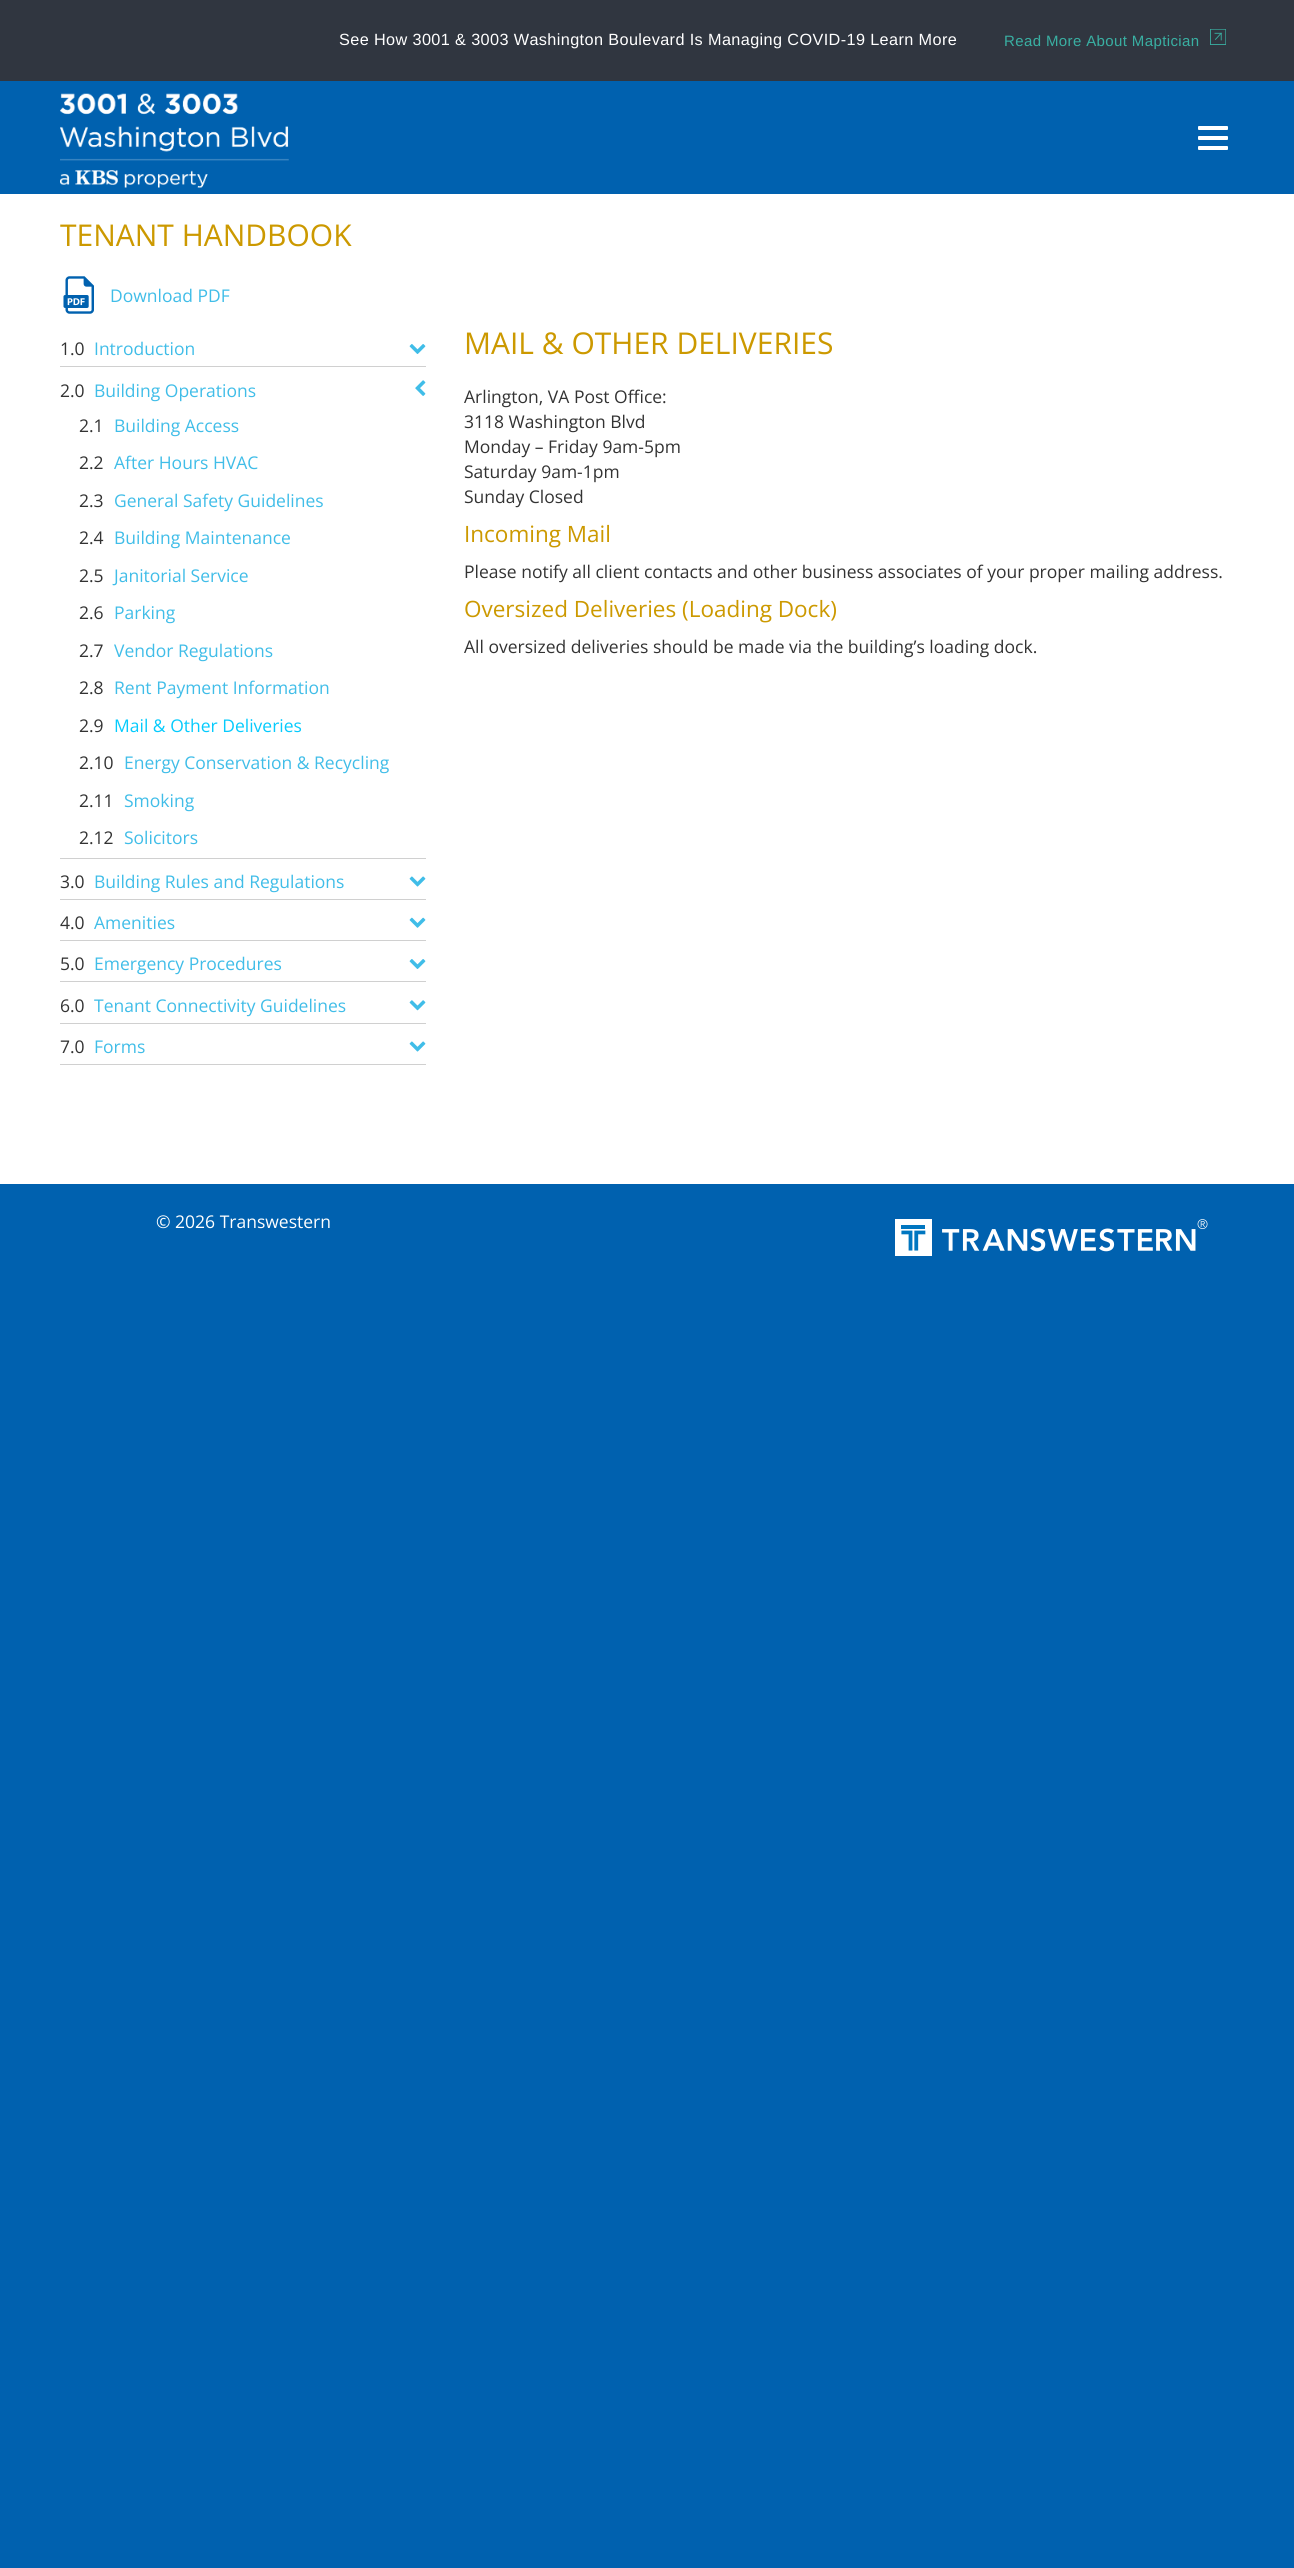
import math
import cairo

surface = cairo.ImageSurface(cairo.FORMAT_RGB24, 1294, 2568)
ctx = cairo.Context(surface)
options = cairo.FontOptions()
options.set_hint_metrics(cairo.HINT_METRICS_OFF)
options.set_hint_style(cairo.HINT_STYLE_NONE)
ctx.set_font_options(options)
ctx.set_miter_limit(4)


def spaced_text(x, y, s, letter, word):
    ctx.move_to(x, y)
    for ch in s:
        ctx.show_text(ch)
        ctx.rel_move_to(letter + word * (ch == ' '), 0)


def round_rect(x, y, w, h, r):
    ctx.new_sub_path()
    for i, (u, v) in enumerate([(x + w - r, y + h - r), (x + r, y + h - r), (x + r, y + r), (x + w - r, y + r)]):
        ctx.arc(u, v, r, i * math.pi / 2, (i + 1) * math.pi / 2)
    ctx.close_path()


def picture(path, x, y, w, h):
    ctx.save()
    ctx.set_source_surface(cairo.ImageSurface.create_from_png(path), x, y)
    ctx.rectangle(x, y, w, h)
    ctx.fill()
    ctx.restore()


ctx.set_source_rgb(0, 0.38, 0.686)
ctx.paint()
ctx.set_source_rgb(0.188, 0.212, 0.251)
ctx.rectangle(0, 0, 1294, 81)
ctx.fill()
ctx.select_font_face("Liberation Sans")
ctx.set_font_size(16.25)
ctx.set_source_rgb(1, 1, 1)
spaced_text(339, 45, "See How 3001 & 3003 Washington Boulevard Is Managing COVID-19 Learn More", 0.38, 0)
ctx.set_font_size(15)
ctx.set_source_rgb(0.224, 0.686, 0.635)
spaced_text(1004, 46, "Read More About Maptician", 0.38, 0)
picture("img1.png", 1210, 29, 16, 16)
picture("img2.png", 60, 93, 229, 95)
ctx.set_source_rgb(1, 1, 1)
round_rect(1198, 136, 30, 4, 1)
ctx.fill()
round_rect(1198, 126, 30, 4, 1)
ctx.fill()
round_rect(1198, 146, 30, 4, 1)
ctx.fill()
ctx.rectangle(0, 194, 1294, 990)
ctx.fill()
ctx.select_font_face("Open Sans")
ctx.set_font_size(30)
ctx.set_source_rgb(0.8, 0.6, 0)
ctx.move_to(60, 246)
ctx.show_text("TENANT HANDBOOK")
picture("img3.png", 63, 276, 31, 38)
ctx.set_font_size(17.5)
ctx.set_source_rgb(0.251, 0.741, 0.91)
ctx.move_to(110, 302)
ctx.show_text("Download PDF")
ctx.set_source_rgb(0.816, 0.816, 0.816)
ctx.rectangle(60, 366, 366, 1)
ctx.fill()
ctx.set_source_rgb(0.2, 0.2, 0.2)
ctx.move_to(60, 355)
ctx.show_text("1.0")
ctx.set_source_rgb(0.251, 0.741, 0.91)
ctx.move_to(94, 355)
ctx.show_text("Introduction")
picture("img4.png", 409, 344, 17, 10)
ctx.set_source_rgb(0.816, 0.816, 0.816)
ctx.rectangle(60, 858, 366, 1)
ctx.fill()
ctx.set_source_rgb(0.2, 0.2, 0.2)
ctx.move_to(60, 397)
ctx.show_text("2.0")
ctx.set_source_rgb(0.251, 0.741, 0.91)
ctx.move_to(94, 397)
ctx.show_text("Building Operations")
picture("img5.png", 415, 380, 11, 16)
ctx.set_source_rgb(0.2, 0.2, 0.2)
ctx.move_to(79, 432)
ctx.show_text("2.1")
ctx.set_source_rgb(0.251, 0.741, 0.91)
ctx.move_to(114, 432)
ctx.show_text("Building Access")
ctx.set_source_rgb(0.2, 0.2, 0.2)
ctx.move_to(79, 469)
ctx.show_text("2.2")
ctx.set_source_rgb(0.251, 0.741, 0.91)
ctx.move_to(114, 469)
ctx.show_text("After Hours HVAC")
ctx.set_source_rgb(0.2, 0.2, 0.2)
ctx.move_to(79, 507)
ctx.show_text("2.3")
ctx.set_source_rgb(0.251, 0.741, 0.91)
ctx.move_to(114, 507)
ctx.show_text("General Safety Guidelines")
ctx.set_source_rgb(0.2, 0.2, 0.2)
ctx.move_to(79, 544)
ctx.show_text("2.4")
ctx.set_source_rgb(0.251, 0.741, 0.91)
ctx.move_to(114, 544)
ctx.show_text("Building Maintenance")
ctx.set_source_rgb(0.2, 0.2, 0.2)
ctx.move_to(79, 582)
ctx.show_text("2.5")
ctx.set_source_rgb(0.251, 0.741, 0.91)
ctx.move_to(114, 582)
ctx.show_text("Janitorial Service")
ctx.set_source_rgb(0.2, 0.2, 0.2)
ctx.move_to(79, 619)
ctx.show_text("2.6")
ctx.set_source_rgb(0.251, 0.741, 0.91)
ctx.move_to(114, 619)
ctx.show_text("Parking")
ctx.set_source_rgb(0.2, 0.2, 0.2)
ctx.move_to(79, 657)
ctx.show_text("2.7")
ctx.set_source_rgb(0.251, 0.741, 0.91)
ctx.move_to(114, 657)
ctx.show_text("Vendor Regulations")
ctx.set_source_rgb(0.2, 0.2, 0.2)
ctx.move_to(79, 694)
ctx.show_text("2.8")
ctx.set_source_rgb(0.251, 0.741, 0.91)
ctx.move_to(114, 694)
ctx.show_text("Rent Payment Information")
ctx.set_source_rgb(0.2, 0.2, 0.2)
ctx.move_to(79, 732)
ctx.show_text("2.9")
ctx.set_source_rgb(0.02, 0.796, 0.992)
ctx.move_to(114, 732)
ctx.show_text("Mail & Other Deliveries")
ctx.set_source_rgb(0.2, 0.2, 0.2)
ctx.move_to(79, 769)
ctx.show_text("2.10")
ctx.set_source_rgb(0.251, 0.741, 0.91)
ctx.move_to(124, 769)
ctx.show_text("Energy Conservation & Recycling")
ctx.set_source_rgb(0.2, 0.2, 0.2)
ctx.move_to(79, 807)
ctx.show_text("2.11")
ctx.set_source_rgb(0.251, 0.741, 0.91)
ctx.move_to(124, 807)
ctx.show_text("Smoking")
ctx.set_source_rgb(0.2, 0.2, 0.2)
ctx.move_to(79, 844)
ctx.show_text("2.12")
ctx.set_source_rgb(0.251, 0.741, 0.91)
ctx.move_to(124, 844)
ctx.show_text("Solicitors")
ctx.set_source_rgb(0.816, 0.816, 0.816)
ctx.rectangle(60, 899, 366, 1)
ctx.fill()
ctx.set_source_rgb(0.2, 0.2, 0.2)
ctx.move_to(60, 888)
ctx.show_text("3.0")
ctx.set_source_rgb(0.251, 0.741, 0.91)
ctx.move_to(94, 888)
ctx.show_text("Building Rules and Regulations")
picture("img6.png", 409, 876, 17, 11)
ctx.set_source_rgb(0.816, 0.816, 0.816)
ctx.rectangle(60, 940, 366, 1)
ctx.fill()
ctx.set_source_rgb(0.2, 0.2, 0.2)
ctx.move_to(60, 929)
ctx.show_text("4.0")
ctx.set_source_rgb(0.251, 0.741, 0.91)
ctx.move_to(94, 929)
ctx.show_text("Amenities")
picture("img7.png", 409, 917, 17, 11)
ctx.set_source_rgb(0.816, 0.816, 0.816)
ctx.rectangle(60, 981, 366, 1)
ctx.fill()
ctx.set_source_rgb(0.2, 0.2, 0.2)
ctx.move_to(60, 970)
ctx.show_text("5.0")
ctx.set_source_rgb(0.251, 0.741, 0.91)
ctx.move_to(94, 970)
ctx.show_text("Emergency Procedures")
picture("img4.png", 409, 959, 17, 10)
ctx.set_source_rgb(0.816, 0.816, 0.816)
ctx.rectangle(60, 1023, 366, 1)
ctx.fill()
ctx.set_source_rgb(0.2, 0.2, 0.2)
ctx.move_to(60, 1012)
ctx.show_text("6.0")
ctx.set_source_rgb(0.251, 0.741, 0.91)
ctx.move_to(94, 1012)
ctx.show_text("Tenant Connectivity Guidelines")
picture("img8.png", 409, 1000, 17, 11)
ctx.set_source_rgb(0.816, 0.816, 0.816)
ctx.rectangle(60, 1064, 366, 1)
ctx.fill()
ctx.set_source_rgb(0.2, 0.2, 0.2)
ctx.move_to(60, 1053)
ctx.show_text("7.0")
ctx.set_source_rgb(0.251, 0.741, 0.91)
ctx.move_to(94, 1053)
ctx.show_text("Forms")
picture("img6.png", 409, 1041, 17, 11)
ctx.set_font_size(30)
ctx.set_source_rgb(0.8, 0.6, 0)
ctx.move_to(464, 354)
ctx.show_text("MAIL & OTHER DELIVERIES")
ctx.set_font_size(17.5)
ctx.set_source_rgb(0.2, 0.2, 0.2)
ctx.move_to(464, 403)
ctx.show_text("Arlington, VA Post Office:")
ctx.move_to(464, 428)
ctx.show_text("3118 Washington Blvd")
ctx.move_to(464, 453)
ctx.show_text("Monday – Friday 9am-5pm")
ctx.move_to(464, 478)
ctx.show_text("Saturday 9am-1pm")
ctx.move_to(464, 503)
ctx.show_text("Sunday Closed")
ctx.set_font_size(22.5)
ctx.set_source_rgb(0.8, 0.6, 0)
ctx.move_to(464, 542)
ctx.show_text("Incoming Mail")
ctx.set_font_size(17.5)
ctx.set_source_rgb(0.2, 0.2, 0.2)
ctx.move_to(464, 578)
ctx.show_text("Please notify all client contacts and other business associates of your proper mailing address.")
ctx.set_font_size(22.5)
ctx.set_source_rgb(0.8, 0.6, 0)
ctx.move_to(464, 617)
ctx.show_text("Oversized Deliveries (Loading Dock)")
ctx.set_font_size(17.5)
ctx.set_source_rgb(0.2, 0.2, 0.2)
ctx.move_to(464, 653)
ctx.show_text("All oversized deliveries should be made via the building’s loading dock.")
ctx.set_source_rgb(1, 1, 1)
ctx.move_to(156, 1228)
ctx.show_text("© 2026 Transwestern")
picture("img9.png", 895, 1219, 313, 37)
surface.write_to_png("page.png")
